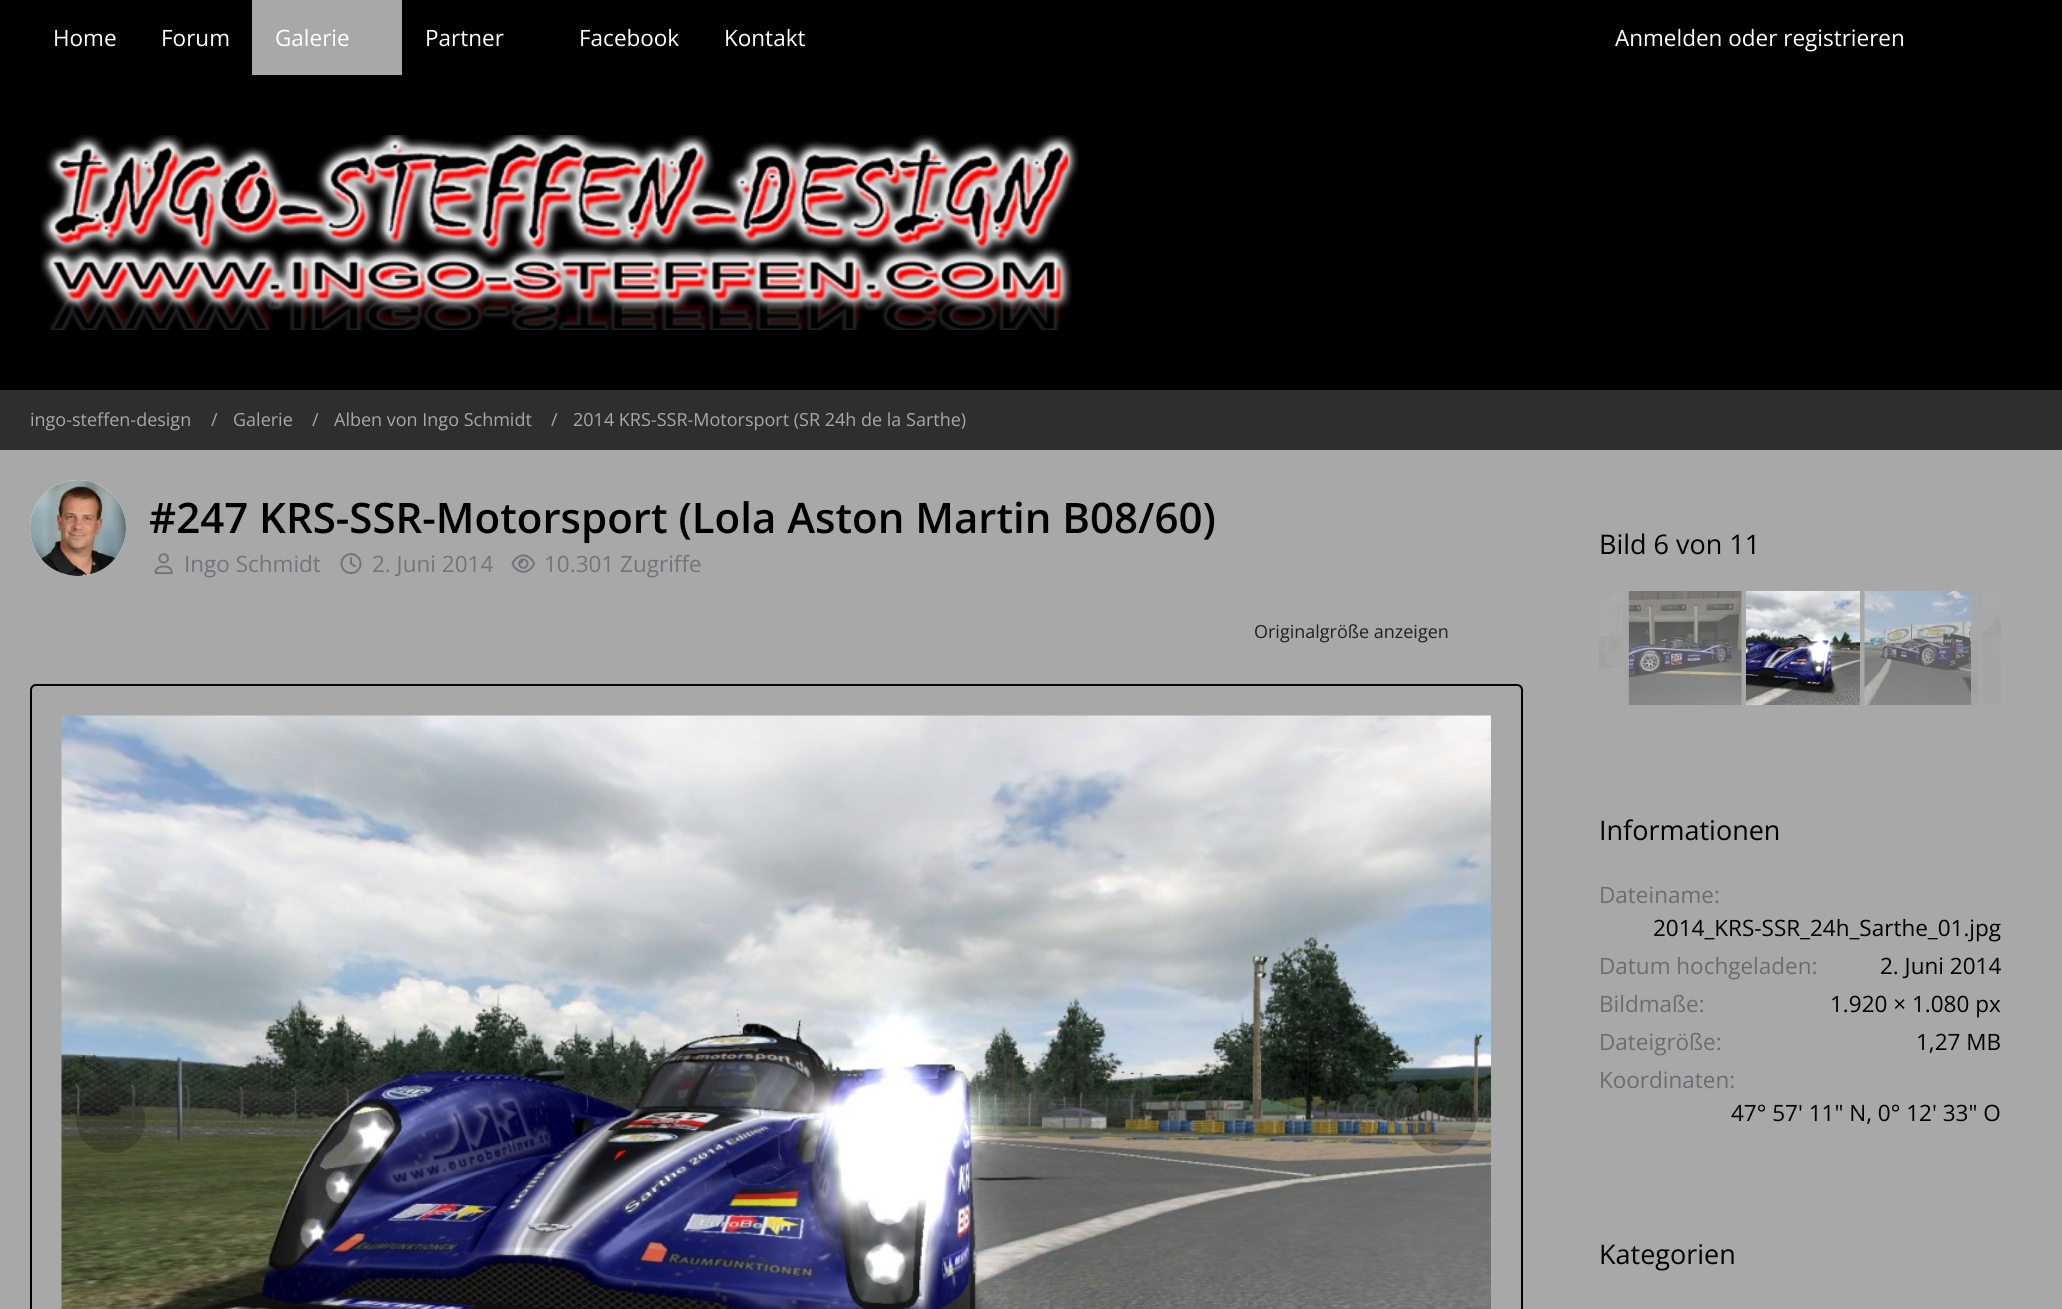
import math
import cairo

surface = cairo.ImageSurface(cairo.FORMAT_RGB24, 2062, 1309)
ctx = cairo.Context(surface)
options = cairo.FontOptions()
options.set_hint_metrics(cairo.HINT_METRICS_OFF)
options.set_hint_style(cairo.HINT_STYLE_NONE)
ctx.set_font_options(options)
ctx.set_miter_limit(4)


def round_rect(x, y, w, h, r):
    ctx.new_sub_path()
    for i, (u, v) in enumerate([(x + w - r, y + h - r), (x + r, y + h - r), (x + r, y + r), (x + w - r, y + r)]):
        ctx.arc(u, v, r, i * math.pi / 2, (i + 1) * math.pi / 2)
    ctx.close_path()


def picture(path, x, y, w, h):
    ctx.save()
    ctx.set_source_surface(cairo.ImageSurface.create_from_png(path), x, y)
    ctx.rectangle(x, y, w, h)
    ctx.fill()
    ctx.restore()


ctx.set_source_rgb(0.659, 0.659, 0.659)
ctx.paint()
ctx.set_source_rgb(0, 0, 0)
ctx.rectangle(0, 0, 2062, 390)
ctx.fill()
ctx.select_font_face("Open Sans")
ctx.set_font_size(22.5)
ctx.set_source_rgb(1, 1, 1)
ctx.move_to(53, 46)
ctx.show_text("Home")
ctx.move_to(161, 46)
ctx.show_text("Forum")
ctx.set_source_rgb(0.659, 0.659, 0.659)
ctx.rectangle(252, 0, 150, 75)
ctx.fill()
ctx.set_source_rgb(1, 1, 1)
ctx.move_to(275, 46)
ctx.show_text("Galerie")
ctx.move_to(425, 46)
ctx.show_text("Partner")
ctx.move_to(579, 46)
ctx.show_text("Facebook")
ctx.move_to(724, 46)
ctx.show_text("Kontakt")
ctx.move_to(1615, 46)
ctx.show_text("Anmelden oder registrieren")
picture("img1.png", 40, 135, 1039, 195)
ctx.set_source_rgb(0.18, 0.18, 0.18)
ctx.rectangle(0, 390, 2062, 60)
ctx.fill()
ctx.set_font_size(18)
ctx.set_source_rgb(0.659, 0.659, 0.659)
ctx.move_to(30, 426)
ctx.show_text("ingo-steffen-design")
ctx.move_to(211, 426)
ctx.show_text("/")
ctx.move_to(233, 426)
ctx.show_text("Galerie")
ctx.move_to(312, 426)
ctx.show_text("/")
ctx.move_to(334, 426)
ctx.show_text("Alben von Ingo Schmidt")
ctx.move_to(551, 426)
ctx.show_text("/")
ctx.move_to(573, 426)
ctx.show_text("2014 KRS-SSR-Motorsport (SR 24h de la Sarthe)")
ctx.set_source_rgb(1, 1, 1)
ctx.new_path()
ctx.arc(78, 528, 48, 0, 2 * math.pi)
ctx.fill()
picture("img2.png", 30, 480, 96, 96)
ctx.select_font_face("Open Sans SemiBold")
ctx.set_font_size(42)
ctx.set_source_rgb(0, 0, 0)
ctx.move_to(149, 533)
ctx.show_text("#247 KRS-SSR-Motorsport (Lola Aston Martin B08/60)")
picture("img3.png", 154, 553, 19, 22)
ctx.select_font_face("Open Sans")
ctx.set_font_size(22.5)
ctx.set_source_rgb(0.443, 0.459, 0.478)
ctx.move_to(184, 572)
ctx.show_text("Ingo Schmidt")
picture("img4.png", 340, 553, 22, 22)
ctx.move_to(372, 572)
ctx.show_text("2. Juni 2014")
picture("img5.png", 511, 554, 25, 19)
ctx.move_to(544, 572)
ctx.show_text("10.301 Zugriffe")
ctx.set_font_size(18)
ctx.set_source_rgb(0.129, 0.129, 0.129)
ctx.move_to(1254, 638)
ctx.show_text("Originalgröße anzeigen")
round_rect(31, 685, 1491, 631, 5)
ctx.set_source_rgb(0, 0, 0)
ctx.stroke()
picture("img6.png", 61, 715, 1430, 594)
ctx.set_source_rgba(0, 0, 0, 0.2)
ctx.new_path()
ctx.move_to(111, 1087.5)
ctx.curve_to(130, 1087.5, 145.5, 1102.5, 145.5, 1120.5)
ctx.curve_to(145.5, 1138.5, 130, 1153.5, 111, 1153.5)
ctx.curve_to(92, 1153.5, 76.5, 1138.5, 76.5, 1120.5)
ctx.curve_to(76.5, 1102.5, 92, 1087.5, 111, 1087.5)
ctx.close_path()
ctx.fill()
ctx.new_path()
ctx.move_to(1441.5, 1087.5)
ctx.curve_to(1460.5, 1087.5, 1476, 1102.5, 1476, 1120.5)
ctx.curve_to(1476, 1138.5, 1460.5, 1153.5, 1441.5, 1153.5)
ctx.curve_to(1422.5, 1153.5, 1407, 1138.5, 1407, 1120.5)
ctx.curve_to(1407, 1102.5, 1422.5, 1087.5, 1441.5, 1087.5)
ctx.close_path()
ctx.fill()
ctx.set_font_size(27)
ctx.set_source_rgb(0, 0, 0)
ctx.move_to(1599, 554)
ctx.show_text("Bild 6 von 11")
picture("img7.png", 1599, 591, 24, 114)
picture("img8.png", 1627, 591, 115, 114)
picture("img9.png", 1746, 591, 114, 114)
picture("img10.png", 1864, 591, 115, 114)
picture("img11.png", 1983, 591, 18, 114)
ctx.set_source_rgba(0.659, 0.659, 0.659, 0.9)
ctx.rectangle(1599, 591, 30, 114)
ctx.fill()
ctx.rectangle(1971, 591, 30, 114)
ctx.fill()
ctx.set_source_rgb(0, 0, 0)
ctx.move_to(1599, 840)
ctx.show_text("Informationen")
ctx.set_font_size(22.5)
ctx.set_source_rgb(0.412, 0.427, 0.447)
ctx.move_to(1599, 903)
ctx.show_text("Dateiname:")
ctx.set_source_rgb(0, 0, 0)
ctx.move_to(1653, 936)
ctx.show_text("2014_KRS-SSR_24h_Sarthe_01.jpg")
ctx.set_source_rgb(0.412, 0.427, 0.447)
ctx.move_to(1599, 974)
ctx.show_text("Datum hochgeladen:")
ctx.set_source_rgb(0, 0, 0)
ctx.move_to(1880, 974)
ctx.show_text("2. Juni 2014")
ctx.set_source_rgb(0.412, 0.427, 0.447)
ctx.move_to(1599, 1012)
ctx.show_text("Bildmaße:")
ctx.set_source_rgb(0, 0, 0)
ctx.move_to(1830, 1012)
ctx.show_text("1.920 × 1.080 px")
ctx.set_source_rgb(0.412, 0.427, 0.447)
ctx.move_to(1599, 1050)
ctx.show_text("Dateigröße:")
ctx.set_source_rgb(0, 0, 0)
ctx.move_to(1916, 1050)
ctx.show_text("1,27 MB")
ctx.set_source_rgb(0.412, 0.427, 0.447)
ctx.move_to(1599, 1088)
ctx.show_text("Koordinaten:")
ctx.set_source_rgb(0, 0, 0)
ctx.move_to(1731, 1121)
ctx.show_text("47° 57' 11\" N, 0° 12' 33\" O")
ctx.set_font_size(27)
ctx.move_to(1599, 1264)
ctx.show_text("Kategorien")
surface.write_to_png("page.png")
